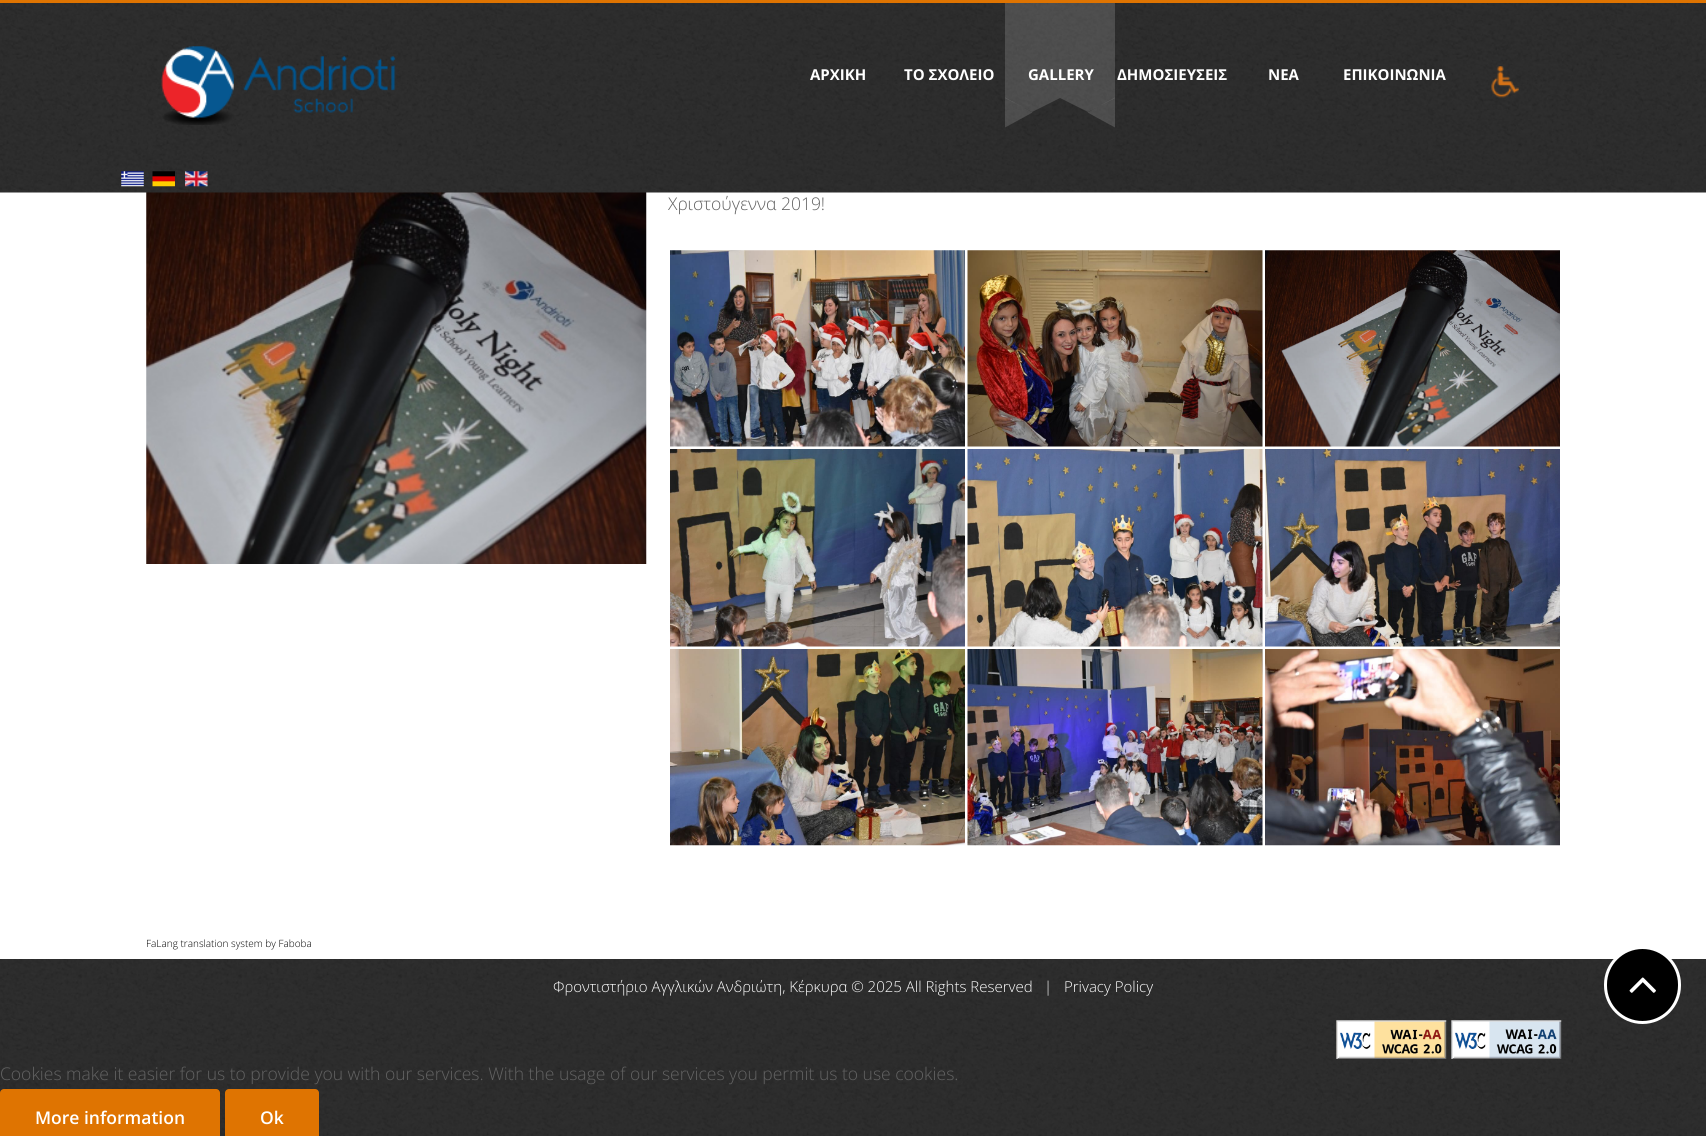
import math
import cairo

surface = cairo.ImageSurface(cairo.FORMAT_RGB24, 1706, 1136)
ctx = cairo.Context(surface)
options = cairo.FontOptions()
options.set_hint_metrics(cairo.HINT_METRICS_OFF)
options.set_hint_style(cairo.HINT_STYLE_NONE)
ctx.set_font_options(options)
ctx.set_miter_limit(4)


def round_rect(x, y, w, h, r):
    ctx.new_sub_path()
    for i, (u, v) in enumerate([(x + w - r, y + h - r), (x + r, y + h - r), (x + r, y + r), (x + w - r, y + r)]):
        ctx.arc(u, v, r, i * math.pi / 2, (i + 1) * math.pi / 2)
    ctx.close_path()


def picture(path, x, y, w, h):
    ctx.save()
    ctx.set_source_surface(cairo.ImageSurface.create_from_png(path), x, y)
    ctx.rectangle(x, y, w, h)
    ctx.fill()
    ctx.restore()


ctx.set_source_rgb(1, 1, 1)
ctx.paint()
picture("img1.png", 0, 959, 1706, 177)
picture("img8.png", 146, 192, 501, 372)
picture("img2.png", 0, 3, 1706, 190)
ctx.set_source_rgb(0.875, 0.455, 0.004)
ctx.rectangle(0, 0, 1706, 3)
ctx.fill()
picture("img3.png", 161, 46, 235, 79)
ctx.select_font_face("Open Sans", cairo.FONT_SLANT_NORMAL, cairo.FONT_WEIGHT_BOLD)
ctx.set_font_size(15)
ctx.set_source_rgb(1, 1, 1)
ctx.move_to(810, 80)
ctx.show_text("ΑΡΧΙΚΗ")
ctx.move_to(904, 80)
ctx.show_text("ΤΟ ΣΧΟΛΕΙΟ")
ctx.set_source_rgba(1, 1, 1, 0.16)
ctx.rectangle(1005, 3, 110, 95)
ctx.fill()
ctx.new_path()
ctx.move_to(1005, 98)
ctx.line_to(1060, 98)
ctx.line_to(1032, 112)
ctx.close_path()
ctx.fill()
ctx.new_path()
ctx.move_to(1005, 127.5)
ctx.line_to(1005, 97.5)
ctx.line_to(1032.5, 112.5)
ctx.close_path()
ctx.fill()
ctx.new_path()
ctx.move_to(1060, 98)
ctx.line_to(1115, 98)
ctx.line_to(1088, 112)
ctx.close_path()
ctx.fill()
ctx.new_path()
ctx.move_to(1115, 97.5)
ctx.line_to(1115, 127.5)
ctx.line_to(1087.5, 112.5)
ctx.close_path()
ctx.fill()
ctx.set_source_rgb(1, 1, 1)
ctx.move_to(1028, 80)
ctx.show_text("GALLERY")
ctx.move_to(1117, 80)
ctx.show_text("ΔΗΜΟΣΙΕΥΣΕΙΣ")
ctx.move_to(1268, 80)
ctx.show_text("ΝΕΑ")
ctx.move_to(1343, 80)
ctx.show_text("ΕΠΙΚΟΙΝΩΝΙΑ")
picture("img4.png", 1491, 66, 28, 32)
picture("img5.png", 121, 171, 23, 16)
picture("img6.png", 152, 171, 23, 16)
picture("img7.png", 185, 171, 23, 16)
ctx.select_font_face("Open Sans Light")
ctx.set_font_size(17.5)
ctx.set_source_rgb(0.384, 0.384, 0.384)
ctx.move_to(668, 210)
ctx.show_text("Χριστούγεννα 2019!")
picture("img9.png", 670, 250, 295, 197)
picture("img10.png", 967, 250, 296, 197)
picture("img11.png", 1265, 250, 295, 197)
picture("img12.png", 670, 449, 295, 198)
picture("img13.png", 967, 449, 296, 198)
picture("img14.png", 1265, 449, 295, 198)
picture("img15.png", 670, 649, 295, 197)
picture("img16.png", 967, 649, 296, 197)
picture("img17.png", 1265, 649, 295, 197)
ctx.set_font_size(10)
ctx.set_source_rgb(0, 0, 0)
ctx.move_to(146, 947)
ctx.show_text("FaLang translation system by Faboba")
ctx.set_font_size(15)
ctx.set_source_rgb(1, 1, 1)
ctx.move_to(553, 992)
ctx.show_text("Φροντιστήριο Αγγλικών Ανδριώτη, Κέρκυρα © 2025 All Rights Reserved")
ctx.move_to(1044, 992)
ctx.show_text("|")
ctx.move_to(1064, 992)
ctx.show_text("Privacy Policy")
picture("img18.png", 1336, 1020, 111, 39)
picture("img19.png", 1451, 1020, 111, 39)
ctx.set_source_rgb(0, 0, 0)
round_rect(1605.5, 947.5, 74, 75, 37)
ctx.fill_preserve()
ctx.set_source_rgb(1, 1, 1)
ctx.set_line_width(3)
ctx.stroke()
picture("img20.png", 1629, 977, 27, 16)
ctx.set_font_size(17.5)
ctx.set_source_rgb(0.384, 0.384, 0.384)
ctx.move_to(0, 1080)
ctx.show_text("Cookies make it easier for us to provide you with our services. With the usage of our services you permit us to use cookies.")
ctx.set_source_rgb(0.875, 0.455, 0.004)
round_rect(0, 1089, 220, 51, 4)
ctx.fill()
ctx.select_font_face("Open Sans SemiBold")
ctx.set_source_rgb(1, 1, 1)
ctx.move_to(35, 1124)
ctx.show_text("More information")
ctx.set_source_rgb(0.875, 0.455, 0.004)
round_rect(225, 1089, 94, 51, 4)
ctx.fill()
ctx.set_source_rgb(1, 1, 1)
ctx.move_to(260, 1124)
ctx.show_text("Ok")
surface.write_to_png("page.png")
